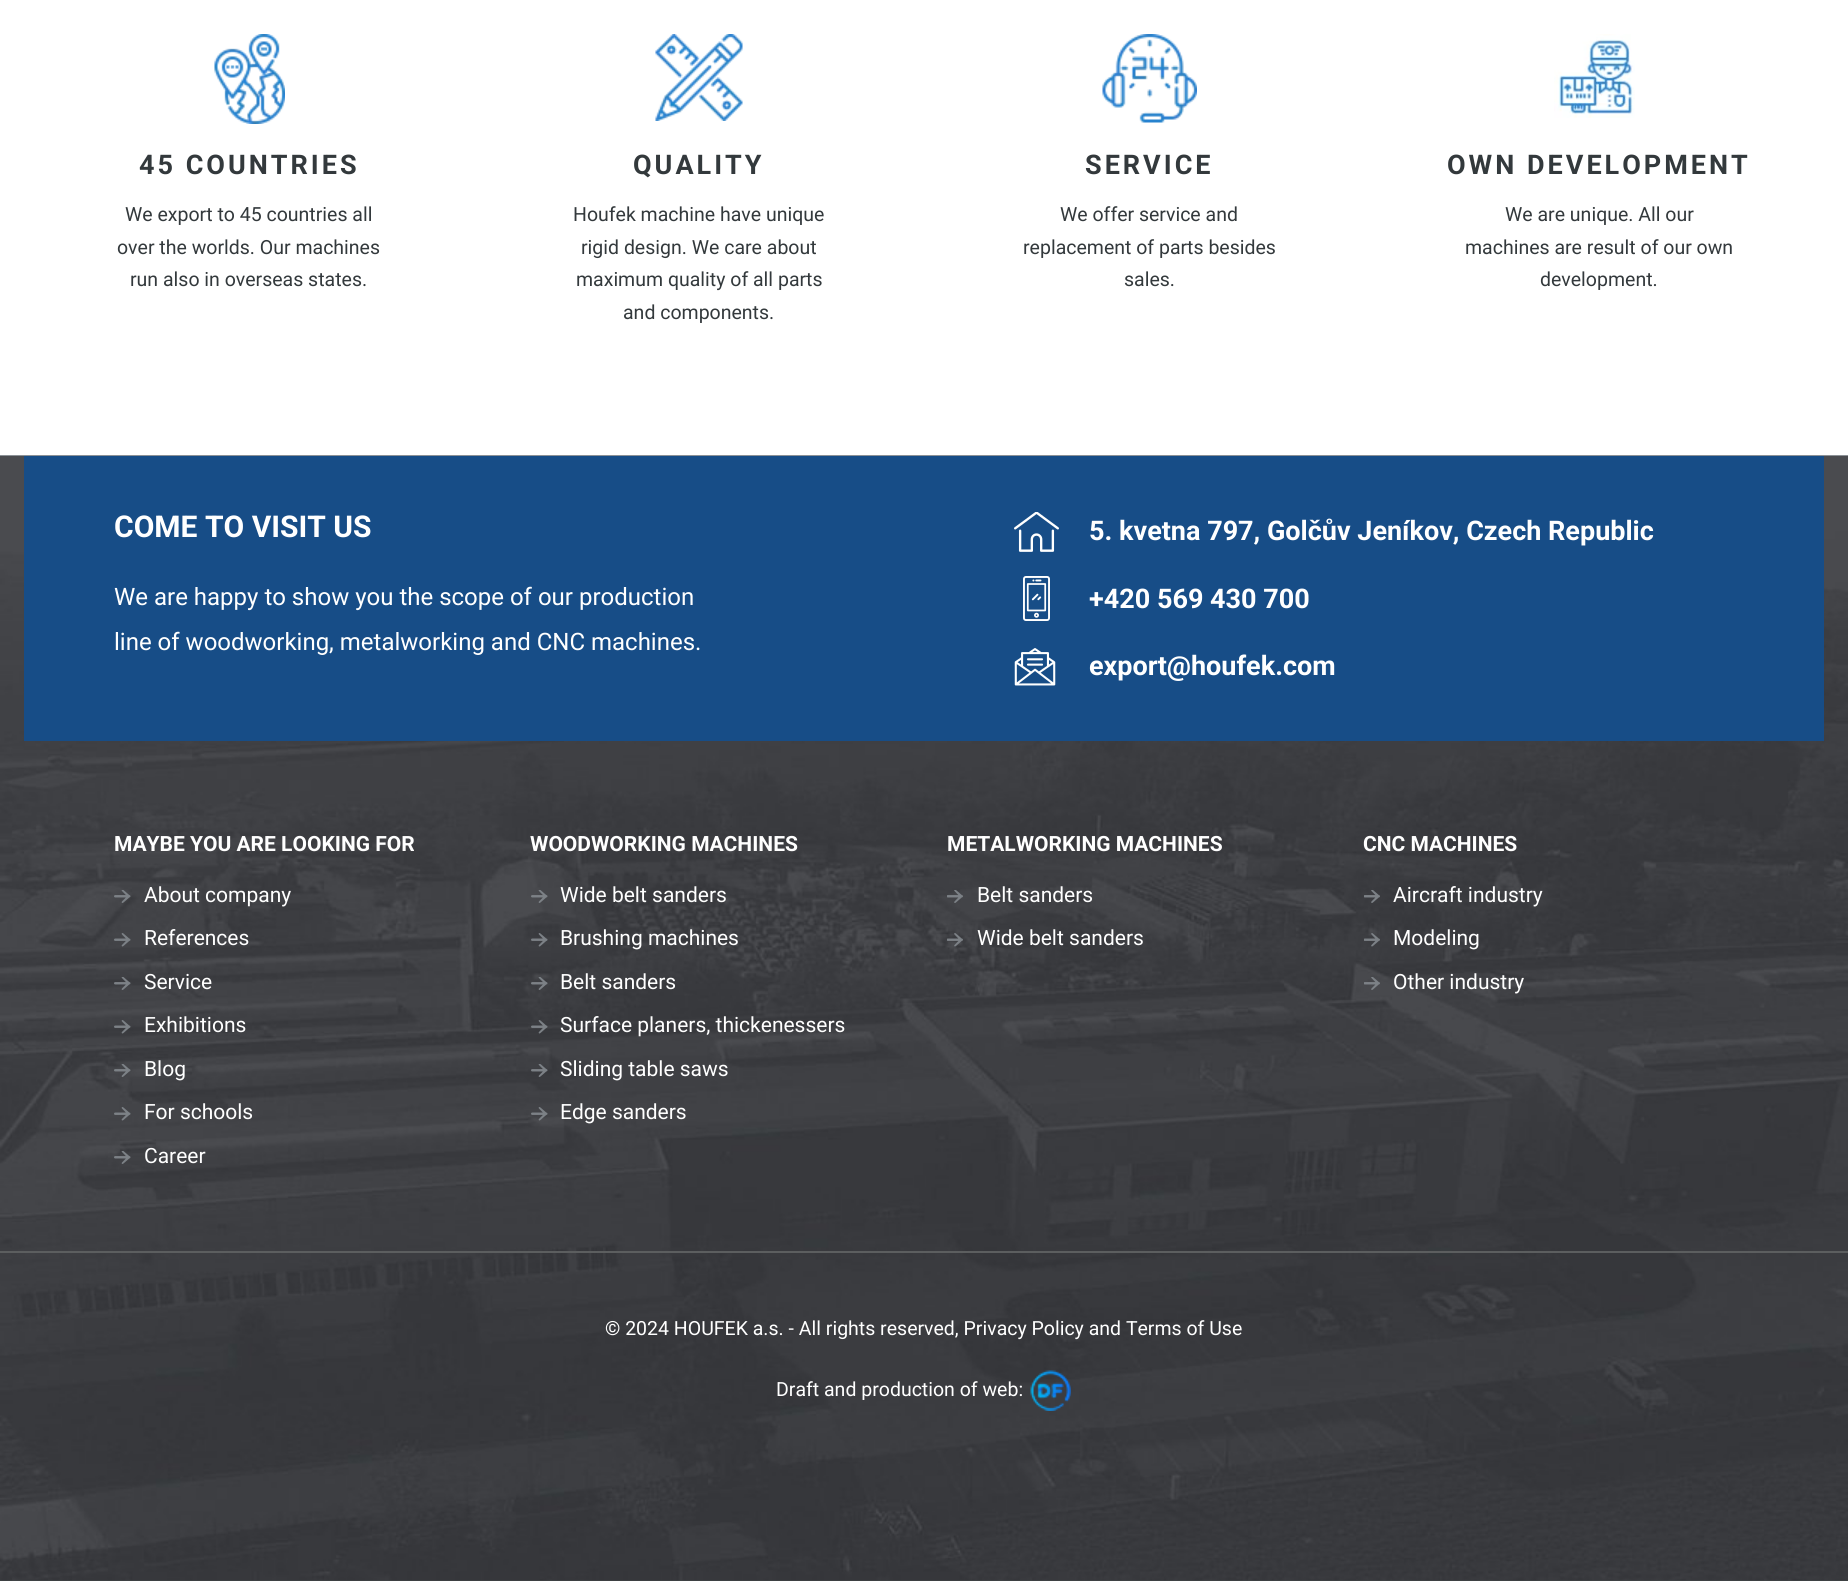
import math
import cairo

surface = cairo.ImageSurface(cairo.FORMAT_RGB24, 1848, 1581)
ctx = cairo.Context(surface)
options = cairo.FontOptions()
options.set_hint_metrics(cairo.HINT_METRICS_OFF)
options.set_hint_style(cairo.HINT_STYLE_NONE)
ctx.set_font_options(options)
ctx.set_miter_limit(4)


def spaced_text(x, y, s, letter, word):
    ctx.move_to(x, y)
    for ch in s:
        ctx.show_text(ch)
        ctx.rel_move_to(letter + word * (ch == ' '), 0)


def picture(path, x, y, w, h):
    ctx.save()
    ctx.set_source_surface(cairo.ImageSurface.create_from_png(path), x, y)
    ctx.rectangle(x, y, w, h)
    ctx.fill()
    ctx.restore()


ctx.set_source_rgb(1, 1, 1)
ctx.paint()
ctx.set_source_rgb(0.812, 0.851, 0.871)
ctx.rectangle(0, 455, 1848, 1)
ctx.fill()
picture("img1.png", 214, 34, 71, 90)
ctx.select_font_face("Roboto", cairo.FONT_SLANT_NORMAL, cairo.FONT_WEIGHT_BOLD)
ctx.set_font_size(27)
ctx.set_source_rgb(0.2, 0.224, 0.235)
spaced_text(139, 174, "45 COUNTRIES", 3, 0)
ctx.select_font_face("Roboto")
ctx.set_font_size(19.5)
ctx.move_to(125, 221)
ctx.show_text("We export to 45 countries all")
ctx.move_to(117, 254)
ctx.show_text("over the worlds. Our machines")
ctx.move_to(130, 286)
ctx.show_text("run also in overseas states.")
picture("img2.png", 655, 34, 88, 87)
ctx.select_font_face("Roboto", cairo.FONT_SLANT_NORMAL, cairo.FONT_WEIGHT_BOLD)
ctx.set_font_size(27)
spaced_text(633, 174, "QUALITY", 3, 0)
ctx.select_font_face("Roboto")
ctx.set_font_size(19.5)
ctx.move_to(573, 221)
ctx.show_text("Houfek machine have unique")
ctx.move_to(581, 254)
ctx.show_text("rigid design. We care about")
ctx.move_to(576, 286)
ctx.show_text("maximum quality of all parts")
ctx.move_to(623, 319)
ctx.show_text("and components.")
picture("img3.png", 1102, 34, 95, 89)
ctx.select_font_face("Roboto", cairo.FONT_SLANT_NORMAL, cairo.FONT_WEIGHT_BOLD)
ctx.set_font_size(27)
spaced_text(1085, 174, "SERVICE", 3, 0)
ctx.select_font_face("Roboto")
ctx.set_font_size(19.5)
ctx.move_to(1060, 221)
ctx.show_text("We offer service and")
ctx.move_to(1023, 254)
ctx.show_text("replacement of parts besides")
ctx.move_to(1124, 286)
ctx.show_text("sales.")
picture("img4.png", 1554, 34, 81, 84)
ctx.select_font_face("Roboto", cairo.FONT_SLANT_NORMAL, cairo.FONT_WEIGHT_BOLD)
ctx.set_font_size(27)
spaced_text(1447, 174, "OWN DEVELOPMENT", 3, 0)
ctx.select_font_face("Roboto")
ctx.set_font_size(19.5)
ctx.move_to(1505, 221)
ctx.show_text("We are unique. All our")
ctx.move_to(1465, 254)
ctx.show_text("machines are result of our own")
ctx.move_to(1540, 286)
ctx.show_text("development.")
ctx.set_source_rgb(0.271, 0.29, 0.294)
ctx.rectangle(0, 1580, 1848, 1)
ctx.fill()
picture("img5.png", 0, 455, 1848, 1126)
ctx.set_source_rgb(0.09, 0.302, 0.529)
ctx.rectangle(24, 456, 1800, 285)
ctx.fill()
ctx.select_font_face("Roboto", cairo.FONT_SLANT_NORMAL, cairo.FONT_WEIGHT_BOLD)
ctx.set_font_size(30)
ctx.set_source_rgb(1, 1, 1)
ctx.move_to(114, 537)
ctx.show_text("COME TO VISIT US")
ctx.select_font_face("Roboto")
ctx.set_font_size(24)
ctx.move_to(114, 605)
ctx.show_text("We are happy to show you the scope of our production")
ctx.move_to(114, 650)
ctx.show_text("line of woodworking, metalworking and CNC machines.")
picture("img6.png", 1014, 512, 45, 40)
ctx.select_font_face("Roboto", cairo.FONT_SLANT_NORMAL, cairo.FONT_WEIGHT_BOLD)
ctx.set_font_size(27)
ctx.move_to(1089, 540)
ctx.show_text("5. kvetna 797, Golčův Jeníkov, Czech Republic")
picture("img7.png", 1023, 576, 27, 45)
ctx.move_to(1089, 608)
ctx.show_text("+420 569 430 700")
picture("img8.png", 1014, 648, 42, 38)
ctx.move_to(1089, 675)
ctx.show_text("export@houfek.com")
ctx.set_font_size(21)
ctx.move_to(114, 851)
ctx.show_text("MAYBE YOU ARE LOOKING FOR")
picture("img9.png", 114, 890, 17, 13)
ctx.select_font_face("Roboto")
ctx.move_to(144, 902)
ctx.show_text("About company")
picture("img10.png", 114, 933, 17, 14)
ctx.move_to(144, 945)
ctx.show_text("References")
picture("img11.png", 114, 977, 17, 13)
ctx.move_to(144, 989)
ctx.show_text("Service")
picture("img12.png", 114, 1020, 17, 14)
ctx.move_to(144, 1032)
ctx.show_text("Exhibitions")
picture("img13.png", 114, 1064, 17, 13)
ctx.move_to(144, 1076)
ctx.show_text("Blog")
picture("img14.png", 114, 1107, 17, 14)
ctx.move_to(144, 1119)
ctx.show_text("For schools")
picture("img15.png", 114, 1151, 17, 13)
ctx.move_to(144, 1163)
ctx.show_text("Career")
ctx.select_font_face("Roboto", cairo.FONT_SLANT_NORMAL, cairo.FONT_WEIGHT_BOLD)
ctx.move_to(530, 851)
ctx.show_text("WOODWORKING MACHINES")
picture("img16.png", 531, 890, 17, 13)
ctx.select_font_face("Roboto")
ctx.move_to(560, 902)
ctx.show_text("Wide belt sanders")
picture("img17.png", 531, 933, 17, 14)
ctx.move_to(560, 945)
ctx.show_text("Brushing machines")
picture("img18.png", 531, 977, 17, 13)
ctx.move_to(560, 989)
ctx.show_text("Belt sanders")
picture("img19.png", 531, 1020, 17, 14)
ctx.move_to(560, 1032)
ctx.show_text("Surface planers, thickenessers")
picture("img20.png", 531, 1064, 17, 13)
ctx.move_to(560, 1076)
ctx.show_text("Sliding table saws")
picture("img21.png", 531, 1107, 17, 14)
ctx.move_to(560, 1119)
ctx.show_text("Edge sanders")
ctx.select_font_face("Roboto", cairo.FONT_SLANT_NORMAL, cairo.FONT_WEIGHT_BOLD)
ctx.move_to(947, 851)
ctx.show_text("METALWORKING MACHINES")
picture("img22.png", 947, 890, 16, 13)
ctx.select_font_face("Roboto")
ctx.move_to(977, 902)
ctx.show_text("Belt sanders")
picture("img23.png", 947, 933, 16, 14)
ctx.move_to(977, 945)
ctx.show_text("Wide belt sanders")
ctx.select_font_face("Roboto", cairo.FONT_SLANT_NORMAL, cairo.FONT_WEIGHT_BOLD)
ctx.move_to(1363, 851)
ctx.show_text("CNC MACHINES")
picture("img24.png", 1364, 890, 16, 13)
ctx.select_font_face("Roboto")
ctx.move_to(1393, 902)
ctx.show_text("Aircraft industry")
picture("img25.png", 1364, 933, 16, 14)
ctx.move_to(1393, 945)
ctx.show_text("Modeling")
picture("img26.png", 1364, 977, 16, 13)
ctx.move_to(1393, 989)
ctx.show_text("Other industry")
ctx.set_source_rgb(0.361, 0.369, 0.373)
ctx.rectangle(0, 1251, 1848, 2)
ctx.fill()
ctx.set_font_size(19.5)
ctx.set_source_rgb(1, 1, 1)
ctx.move_to(605, 1335)
ctx.show_text("© 2024 HOUFEK a.s. - All rights reserved, Privacy Policy and Terms of Use")
ctx.move_to(776, 1396)
ctx.show_text("Draft and production of web:")
picture("img27.png", 1030, 1370, 41, 41)
surface.write_to_png("page.png")
